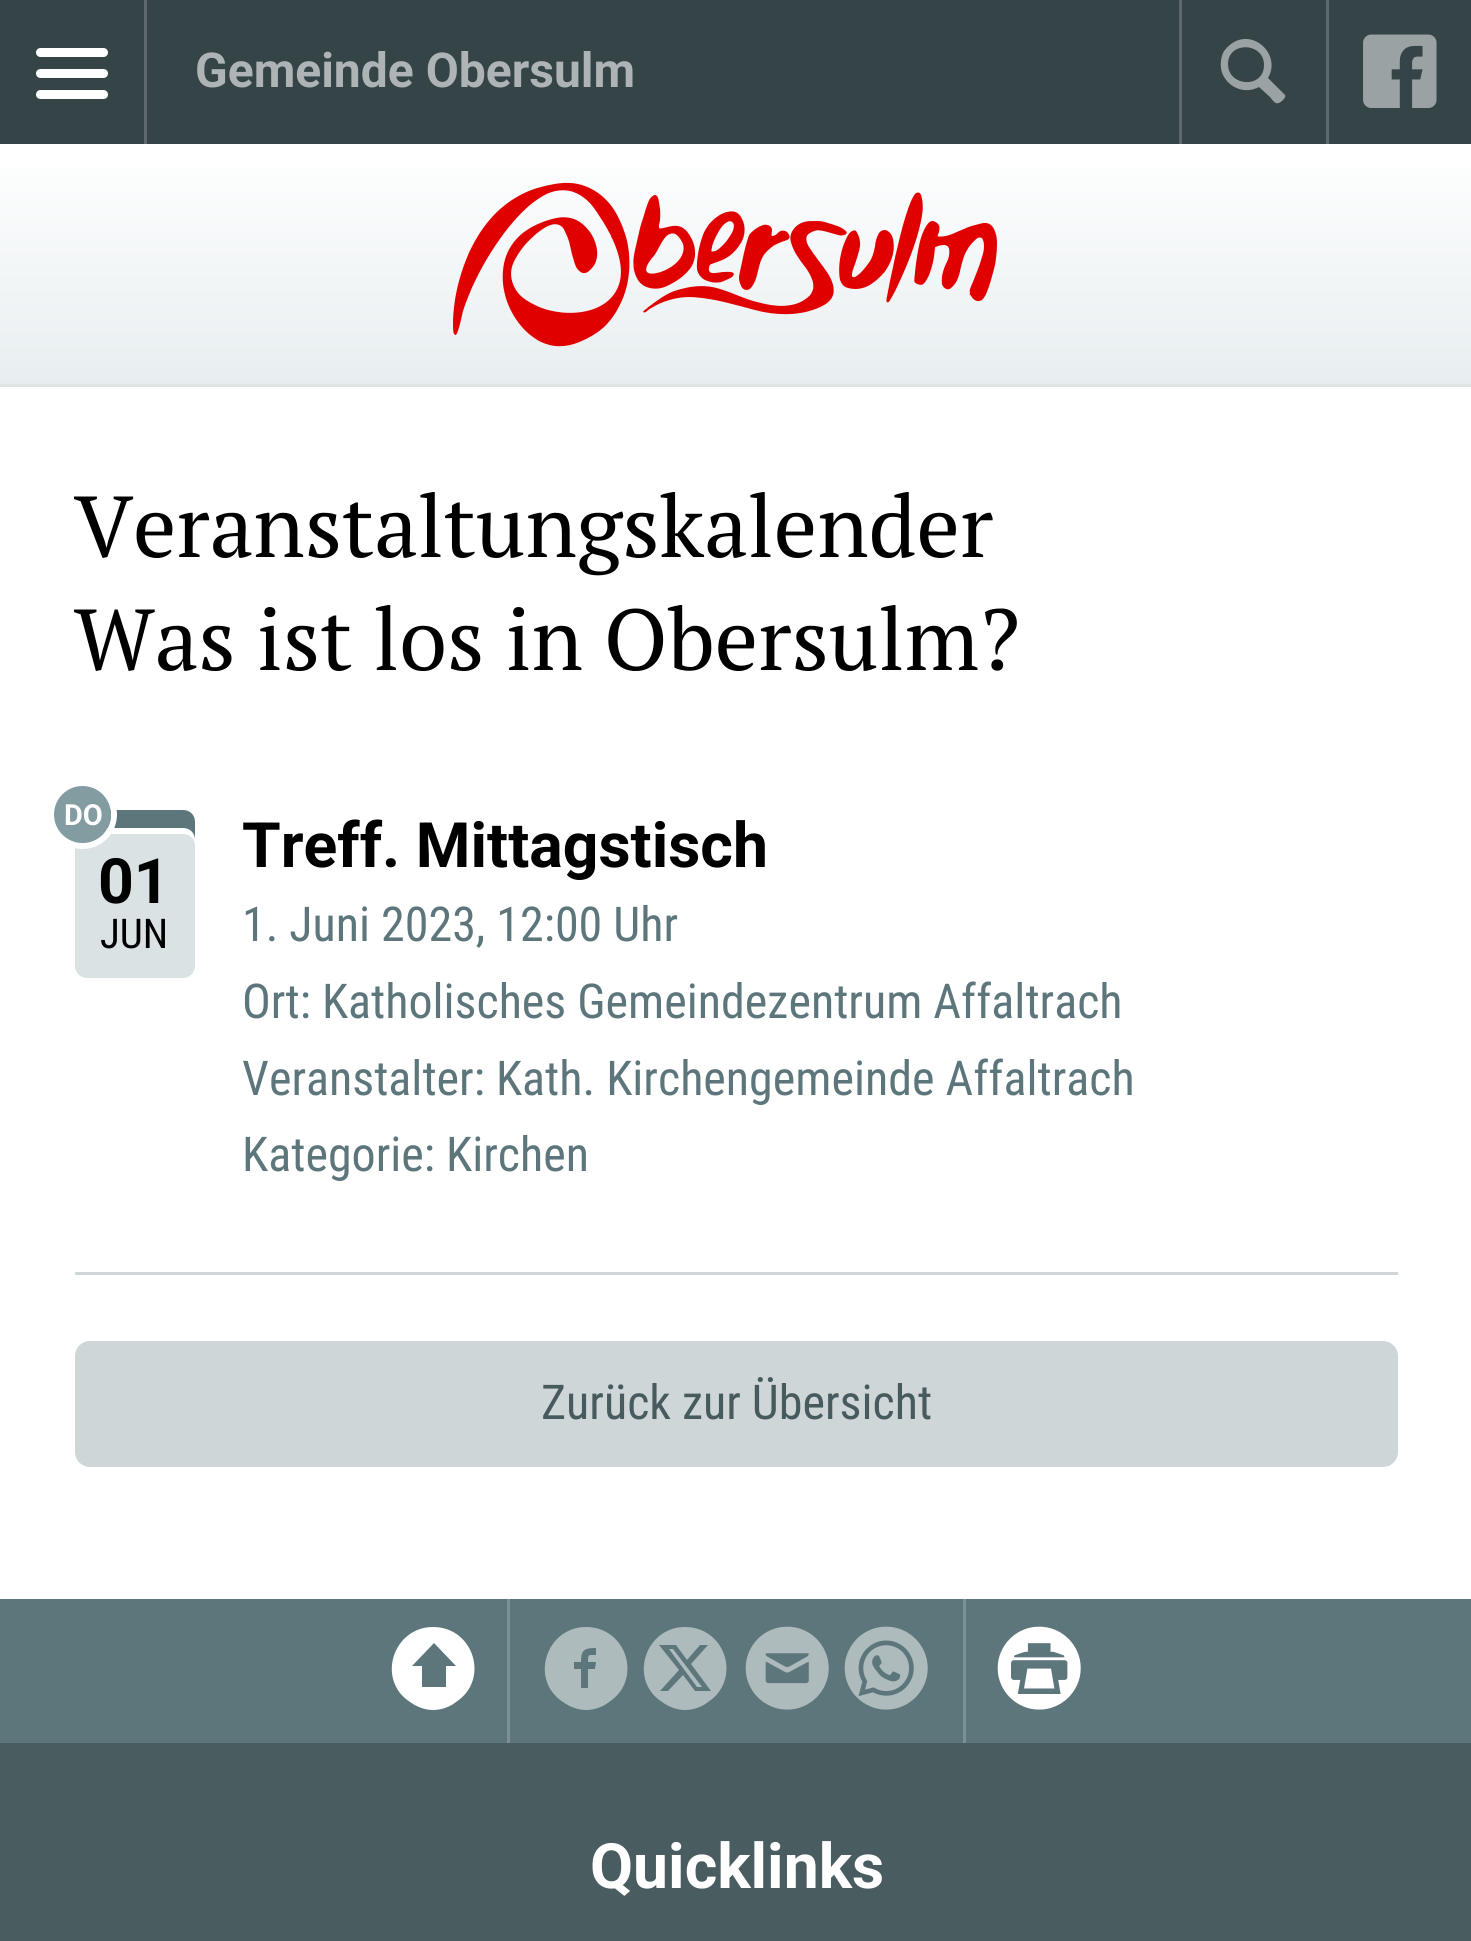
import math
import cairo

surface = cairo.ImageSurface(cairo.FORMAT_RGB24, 1471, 1941)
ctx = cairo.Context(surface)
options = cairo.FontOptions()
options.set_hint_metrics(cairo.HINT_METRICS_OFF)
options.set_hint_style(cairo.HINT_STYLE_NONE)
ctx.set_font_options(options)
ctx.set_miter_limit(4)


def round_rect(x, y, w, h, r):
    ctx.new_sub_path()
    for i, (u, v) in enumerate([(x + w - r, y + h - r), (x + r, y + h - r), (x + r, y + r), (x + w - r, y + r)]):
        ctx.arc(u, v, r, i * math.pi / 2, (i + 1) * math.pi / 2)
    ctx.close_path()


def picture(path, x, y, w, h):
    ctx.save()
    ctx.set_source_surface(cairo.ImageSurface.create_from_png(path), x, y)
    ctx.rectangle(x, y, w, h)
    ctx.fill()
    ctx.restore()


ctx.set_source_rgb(1, 1, 1)
ctx.paint()
ctx.set_source_rgb(0.208, 0.267, 0.278)
ctx.rectangle(0, 0, 1471, 144)
ctx.fill()
ctx.set_source_rgb(1, 1, 1)
round_rect(36, 69, 72, 9, 4.5)
ctx.fill()
round_rect(36, 48, 72, 9, 4.5)
ctx.fill()
round_rect(36, 90, 72, 9, 4.5)
ctx.fill()
ctx.set_source_rgb(0.365, 0.412, 0.424)
ctx.rectangle(144, 0, 3, 144)
ctx.fill()
ctx.select_font_face("Roboto", cairo.FONT_SLANT_NORMAL, cairo.FONT_WEIGHT_BOLD)
ctx.set_font_size(48)
ctx.set_source_rgb(0.682, 0.706, 0.71)
ctx.move_to(195, 87)
ctx.show_text("Gemeinde Obersulm")
ctx.set_source_rgb(0.365, 0.412, 0.424)
ctx.rectangle(1179, 0, 3, 144)
ctx.fill()
ctx.set_source_rgb(0.604, 0.635, 0.639)
ctx.new_path()
ctx.move_to(1284, 94)
ctx.line_to(1268, 78)
ctx.curve_to(1281, 56, 1256, 30, 1234, 42)
ctx.curve_to(1229, 45, 1225, 49, 1223, 53)
ctx.curve_to(1220, 60, 1220, 69, 1223, 75)
ctx.curve_to(1230, 89, 1246, 94, 1259, 87)
ctx.line_to(1270, 97)
ctx.curve_to(1274, 102, 1276, 106, 1282, 101)
ctx.curve_to(1284, 99, 1287, 96, 1284, 94)
ctx.close_path()
ctx.move_to(1228, 64)
ctx.curve_to(1228, 41, 1264, 42, 1264, 65)
ctx.curve_to(1264, 89, 1228, 87, 1228, 64)
ctx.close_path()
ctx.fill()
ctx.set_source_rgb(0.365, 0.412, 0.424)
ctx.rectangle(1326, 0, 3, 144)
ctx.fill()
picture("img1.png", 1363, 34, 74, 74)
gradient = cairo.LinearGradient(737, 0, 737, 384)
gradient.add_color_stop_rgba(0.37, 1, 1, 1, 1)
gradient.add_color_stop_rgba(1, 0.91, 0.933, 0.941, 1)
ctx.set_source(gradient)
ctx.rectangle(0, 168, 1471, 216)
ctx.fill()
ctx.set_source_rgb(0.875, 0.894, 0.898)
ctx.rectangle(0, 384, 1471, 3)
ctx.fill()
picture("img2.png", 453, 182, 544, 165)
ctx.select_font_face("PT Serif")
ctx.set_font_size(86.4)
ctx.set_source_rgb(0, 0, 0)
ctx.move_to(74, 557)
ctx.show_text("Veranstaltungskalender")
ctx.move_to(74, 670)
ctx.show_text("Was ist los in Obersulm?")
ctx.set_source_rgb(0.855, 0.886, 0.89)
round_rect(75, 810, 120, 168, 12)
ctx.fill()
ctx.set_source_rgb(1, 1, 1)
ctx.new_path()
ctx.move_to(87, 834)
ctx.line_to(183, 834)
ctx.curve_to(190, 834, 195, 839, 195, 846)
ctx.line_to(195, 822)
ctx.curve_to(195, 815, 190, 810, 183, 810)
ctx.line_to(87, 810)
ctx.curve_to(80, 810, 75, 815, 75, 822)
ctx.line_to(75, 846)
ctx.curve_to(75, 839, 80, 834, 87, 834)
ctx.close_path()
ctx.fill()
ctx.set_source_rgb(0.365, 0.463, 0.482)
ctx.new_path()
ctx.move_to(87, 828)
ctx.line_to(183, 828)
ctx.curve_to(190, 828, 195, 833, 195, 840)
ctx.line_to(195, 822)
ctx.curve_to(195, 815, 190, 810, 183, 810)
ctx.line_to(87, 810)
ctx.curve_to(80, 810, 75, 815, 75, 822)
ctx.line_to(75, 840)
ctx.curve_to(75, 833, 80, 828, 87, 828)
ctx.close_path()
ctx.fill()
ctx.arc(82.5, 814.5, 31.5, 0, 2 * math.pi)
ctx.set_source_rgb(1, 1, 1)
ctx.set_line_width(6)
ctx.stroke()
ctx.set_source_rgb(0.514, 0.612, 0.631)
ctx.arc(82.5, 814.5, 28.5, 0, 2 * math.pi)
ctx.fill()
ctx.select_font_face("Roboto", cairo.FONT_SLANT_NORMAL, cairo.FONT_WEIGHT_BOLD)
ctx.set_font_size(29)
ctx.set_source_rgb(1, 1, 1)
ctx.move_to(64, 825)
ctx.show_text("DO")
ctx.set_font_size(62.5)
ctx.set_source_rgb(0, 0, 0)
ctx.move_to(98, 903)
ctx.show_text("01")
ctx.select_font_face("Roboto Condensed")
ctx.set_font_size(41)
ctx.move_to(100, 948)
ctx.show_text("JUN")
ctx.select_font_face("Roboto", cairo.FONT_SLANT_NORMAL, cairo.FONT_WEIGHT_BOLD)
ctx.set_font_size(62.5)
ctx.move_to(242, 867)
ctx.show_text("Treff. Mittagstisch")
ctx.select_font_face("Roboto Condensed")
ctx.set_font_size(48)
ctx.set_source_rgb(0.365, 0.463, 0.482)
ctx.move_to(242, 941)
ctx.show_text("1. Juni 2023, 12:00 Uhr")
ctx.move_to(242, 1018)
ctx.show_text("Ort: Katholisches Gemeindezentrum Affaltrach")
ctx.move_to(242, 1095)
ctx.show_text("Veranstalter: Kath. Kirchengemeinde Affaltrach")
ctx.move_to(242, 1171)
ctx.show_text("Kategorie: Kirchen")
ctx.set_source_rgb(0.808, 0.839, 0.843)
ctx.rectangle(75, 1272, 1323, 3)
ctx.fill()
ctx.set_source_rgb(0.812, 0.839, 0.847)
round_rect(75, 1341, 1323, 126, 15)
ctx.fill()
ctx.set_source_rgb(0.278, 0.353, 0.369)
ctx.move_to(541, 1419)
ctx.show_text("Zurück zur Übersicht")
ctx.set_source_rgb(0.365, 0.463, 0.482)
ctx.rectangle(0, 1599, 1471, 144)
ctx.fill()
ctx.set_source_rgb(0.49, 0.569, 0.584)
ctx.rectangle(507, 1599, 3, 144)
ctx.fill()
ctx.set_source_rgb(1, 1, 1)
ctx.new_path()
ctx.move_to(433, 1627)
ctx.curve_to(393, 1627, 376, 1680, 410, 1702)
ctx.curve_to(417, 1707, 425, 1710, 433, 1710)
ctx.curve_to(441, 1710, 450, 1707, 456, 1702)
ctx.curve_to(490, 1680, 474, 1627, 433, 1627)
ctx.close_path()
ctx.move_to(446, 1666)
ctx.line_to(446, 1687)
ctx.line_to(422, 1687)
ctx.line_to(422, 1666)
ctx.line_to(412, 1666)
ctx.line_to(434, 1643)
ctx.line_to(456, 1666)
ctx.close_path()
ctx.fill()
ctx.set_source_rgb(0.682, 0.733, 0.741)
ctx.new_path()
ctx.move_to(586, 1627)
ctx.curve_to(546, 1627, 529, 1680, 563, 1702)
ctx.curve_to(570, 1707, 578, 1710, 586, 1710)
ctx.curve_to(594, 1710, 603, 1707, 609, 1702)
ctx.curve_to(643, 1680, 627, 1627, 586, 1627)
ctx.close_path()
ctx.move_to(596, 1655)
ctx.curve_to(588, 1655, 588, 1654, 588, 1662)
ctx.line_to(596, 1662)
ctx.line_to(595, 1669)
ctx.line_to(588, 1669)
ctx.line_to(588, 1688)
ctx.line_to(581, 1688)
ctx.line_to(581, 1669)
ctx.line_to(574, 1669)
ctx.line_to(574, 1662)
ctx.line_to(581, 1662)
ctx.curve_to(581, 1650, 584, 1648, 596, 1648)
ctx.close_path()
ctx.fill()
ctx.new_path()
ctx.move_to(669, 1649)
ctx.line_to(697, 1687)
ctx.line_to(702, 1687)
ctx.line_to(673, 1649)
ctx.close_path()
ctx.move_to(685, 1627)
ctx.curve_to(645, 1627, 628, 1680, 662, 1702)
ctx.curve_to(669, 1707, 677, 1710, 685, 1710)
ctx.curve_to(693, 1710, 702, 1707, 708, 1702)
ctx.curve_to(742, 1680, 726, 1627, 685, 1627)
ctx.close_path()
ctx.move_to(695, 1691)
ctx.line_to(683, 1675)
ctx.line_to(668, 1691)
ctx.line_to(660, 1691)
ctx.line_to(679, 1670)
ctx.line_to(659, 1645)
ctx.line_to(676, 1645)
ctx.line_to(687, 1660)
ctx.line_to(700, 1645)
ctx.line_to(708, 1645)
ctx.line_to(691, 1664)
ctx.line_to(711, 1691)
ctx.close_path()
ctx.fill()
picture("img3.png", 745, 1626, 84, 84)
picture("img4.png", 844, 1626, 84, 84)
ctx.set_source_rgb(0.49, 0.569, 0.584)
ctx.rectangle(963, 1599, 3, 144)
ctx.fill()
picture("img5.png", 997, 1626, 84, 84)
ctx.set_source_rgb(0.286, 0.365, 0.38)
ctx.rectangle(0, 1743, 1471, 198)
ctx.fill()
ctx.select_font_face("Roboto", cairo.FONT_SLANT_NORMAL, cairo.FONT_WEIGHT_BOLD)
ctx.set_font_size(62.5)
ctx.set_source_rgb(1, 1, 1)
ctx.move_to(590, 1888)
ctx.show_text("Quicklinks")
surface.write_to_png("page.png")
